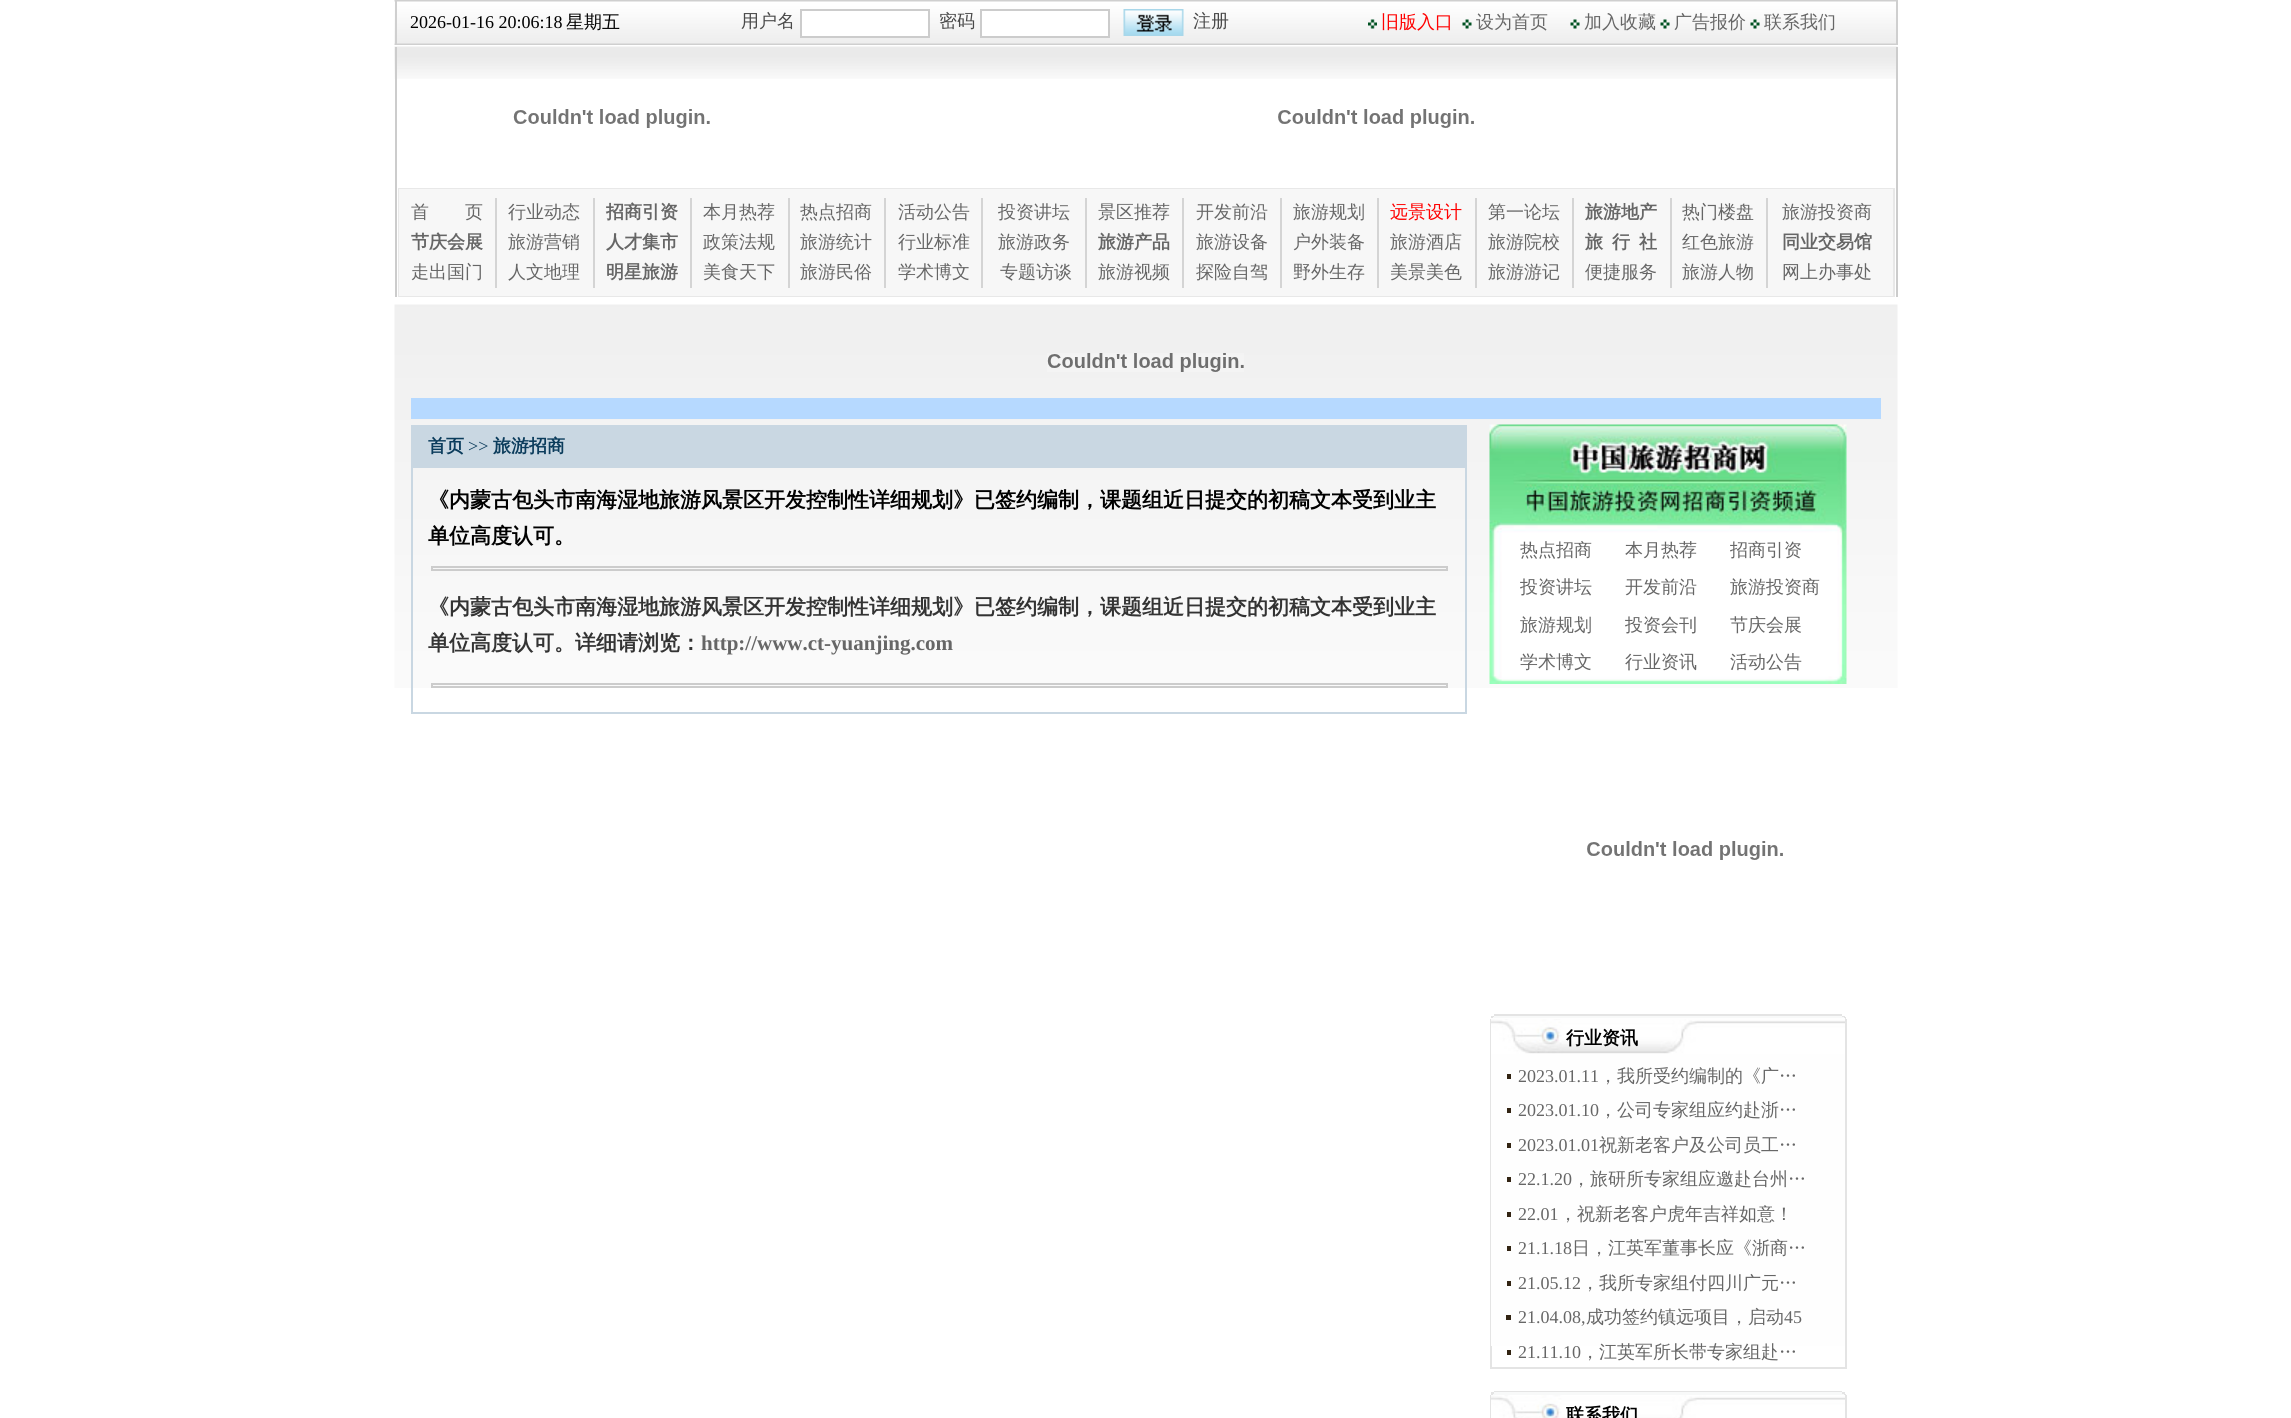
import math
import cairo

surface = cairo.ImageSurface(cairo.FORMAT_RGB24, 2291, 1418)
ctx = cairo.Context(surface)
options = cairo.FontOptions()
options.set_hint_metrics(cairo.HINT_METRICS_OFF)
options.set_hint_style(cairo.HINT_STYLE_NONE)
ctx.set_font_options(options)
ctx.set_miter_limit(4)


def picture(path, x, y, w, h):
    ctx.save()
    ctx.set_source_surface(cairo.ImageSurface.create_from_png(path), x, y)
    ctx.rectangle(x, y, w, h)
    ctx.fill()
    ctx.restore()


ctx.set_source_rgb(1, 1, 1)
ctx.paint()
picture("img1.png", 394, 0, 1502, 45)
ctx.set_source_rgb(0.812, 0.812, 0.812)
ctx.rectangle(1896, 0, 2, 45)
ctx.fill()
ctx.rectangle(395, 0, 2, 45)
ctx.fill()
ctx.select_font_face("Liberation Serif")
ctx.set_font_size(18)
ctx.set_source_rgb(0, 0, 0)
ctx.move_to(410, 28)
ctx.show_text("2026-01-16 20:06:18")
ctx.select_font_face("WenQuanYi Zen Hei Medium")
ctx.move_to(566, 28)
ctx.show_text("星期五")
ctx.set_source_rgb(0.286, 0.286, 0.286)
ctx.move_to(741, 27)
ctx.show_text("用户名")
ctx.set_source_rgb(1, 1, 1)
ctx.rectangle(801, 10, 128, 27)
ctx.fill_preserve()
ctx.set_source_rgb(0.8, 0.8, 0.8)
ctx.stroke()
ctx.set_source_rgb(0.286, 0.286, 0.286)
ctx.move_to(939, 27)
ctx.show_text("密码")
ctx.set_source_rgb(1, 1, 1)
ctx.rectangle(981, 10, 128, 27)
ctx.fill_preserve()
ctx.set_source_rgb(0.8, 0.8, 0.8)
ctx.stroke()
picture("img2.png", 1123, 9, 61, 27)
ctx.set_source_rgb(0.286, 0.286, 0.286)
ctx.move_to(1193, 27)
ctx.show_text("注册")
picture("img3.png", 1368, 19, 9, 10)
ctx.set_source_rgb(1, 0, 0)
ctx.move_to(1381, 28)
ctx.show_text("旧版入口")
picture("img4.png", 1462, 19, 10, 10)
ctx.set_source_rgb(0.4, 0.4, 0.4)
ctx.move_to(1476, 28)
ctx.show_text("设为首页")
picture("img5.png", 1570, 19, 10, 10)
ctx.move_to(1584, 28)
ctx.show_text("加入收藏")
picture("img5.png", 1660, 19, 10, 10)
ctx.move_to(1674, 28)
ctx.show_text("广告报价")
picture("img5.png", 1750, 19, 10, 10)
ctx.move_to(1764, 28)
ctx.show_text("联系我们")
picture("img6.png", 394, 46, 1504, 33)
ctx.set_source_rgb(0.8, 0.8, 0.8)
ctx.rectangle(1896, 47, 2, 250)
ctx.fill()
ctx.rectangle(395, 47, 2, 250)
ctx.fill()
picture("img7.png", 513, 109, 197, 19)
picture("img8.png", 1278, 109, 196, 19)
ctx.rectangle(399, 189, 1495, 107)
ctx.set_source_rgb(0.91, 0.91, 0.91)
ctx.stroke()
ctx.set_source_rgb(0.965, 0.965, 0.965)
ctx.rectangle(399, 189, 1494, 107)
ctx.fill()
ctx.set_source_rgb(0.831, 0.831, 0.831)
ctx.rectangle(495, 198, 2, 90)
ctx.fill()
ctx.set_source_rgb(0.4, 0.4, 0.4)
ctx.move_to(411, 218)
ctx.show_text("首")
ctx.move_to(465, 218)
ctx.show_text("页")
ctx.set_source_rgb(0.831, 0.831, 0.831)
ctx.rectangle(593, 198, 2, 90)
ctx.fill()
ctx.set_source_rgb(0.4, 0.4, 0.4)
ctx.move_to(508, 218)
ctx.show_text("行业动态")
ctx.set_source_rgb(0.831, 0.831, 0.831)
ctx.rectangle(690, 198, 2, 90)
ctx.fill()
ctx.select_font_face("WenQuanYi Zen Hei", cairo.FONT_SLANT_NORMAL, cairo.FONT_WEIGHT_BOLD)
ctx.set_source_rgb(0.4, 0.4, 0.4)
ctx.move_to(606, 218)
ctx.show_text("招商引资")
ctx.set_source_rgb(0.831, 0.831, 0.831)
ctx.rectangle(788, 198, 2, 90)
ctx.fill()
ctx.select_font_face("WenQuanYi Zen Hei Medium")
ctx.set_source_rgb(0.4, 0.4, 0.4)
ctx.move_to(703, 218)
ctx.show_text("本月热荐")
ctx.set_source_rgb(0.831, 0.831, 0.831)
ctx.rectangle(884, 198, 2, 90)
ctx.fill()
ctx.set_source_rgb(0.4, 0.4, 0.4)
ctx.move_to(800, 218)
ctx.show_text("热点招商")
ctx.set_source_rgb(0.831, 0.831, 0.831)
ctx.rectangle(981, 198, 2, 90)
ctx.fill()
ctx.set_source_rgb(0.4, 0.4, 0.4)
ctx.move_to(898, 218)
ctx.show_text("活动公告")
ctx.set_source_rgb(0.831, 0.831, 0.831)
ctx.rectangle(1085, 198, 2, 90)
ctx.fill()
ctx.set_source_rgb(0.4, 0.4, 0.4)
ctx.move_to(998, 218)
ctx.show_text("投资讲坛")
ctx.set_source_rgb(0.831, 0.831, 0.831)
ctx.rectangle(1182, 198, 2, 90)
ctx.fill()
ctx.set_source_rgb(0.4, 0.4, 0.4)
ctx.move_to(1098, 218)
ctx.show_text("景区推荐")
ctx.set_source_rgb(0.831, 0.831, 0.831)
ctx.rectangle(1280, 198, 2, 90)
ctx.fill()
ctx.set_source_rgb(0.4, 0.4, 0.4)
ctx.move_to(1196, 218)
ctx.show_text("开发前沿")
ctx.set_source_rgb(0.831, 0.831, 0.831)
ctx.rectangle(1377, 198, 2, 90)
ctx.fill()
ctx.set_source_rgb(0.4, 0.4, 0.4)
ctx.move_to(1293, 218)
ctx.show_text("旅游规划")
ctx.set_source_rgb(0.831, 0.831, 0.831)
ctx.rectangle(1475, 198, 2, 90)
ctx.fill()
ctx.set_source_rgb(1, 0, 0)
ctx.move_to(1390, 218)
ctx.show_text("远景设计")
ctx.set_source_rgb(0.831, 0.831, 0.831)
ctx.rectangle(1572, 198, 2, 90)
ctx.fill()
ctx.set_source_rgb(0.4, 0.4, 0.4)
ctx.move_to(1488, 218)
ctx.show_text("第一论坛")
ctx.set_source_rgb(0.831, 0.831, 0.831)
ctx.rectangle(1670, 198, 2, 90)
ctx.fill()
ctx.select_font_face("WenQuanYi Zen Hei", cairo.FONT_SLANT_NORMAL, cairo.FONT_WEIGHT_BOLD)
ctx.set_source_rgb(0.4, 0.4, 0.4)
ctx.move_to(1585, 218)
ctx.show_text("旅游地产")
ctx.set_source_rgb(0.831, 0.831, 0.831)
ctx.rectangle(1766, 198, 2, 90)
ctx.fill()
ctx.select_font_face("WenQuanYi Zen Hei Medium")
ctx.set_source_rgb(0.4, 0.4, 0.4)
ctx.move_to(1682, 218)
ctx.show_text("热门楼盘")
ctx.move_to(1782, 218)
ctx.show_text("旅游投资商")
ctx.select_font_face("WenQuanYi Zen Hei", cairo.FONT_SLANT_NORMAL, cairo.FONT_WEIGHT_BOLD)
ctx.move_to(411, 248)
ctx.show_text("节庆会展")
ctx.select_font_face("WenQuanYi Zen Hei Medium")
ctx.move_to(508, 248)
ctx.show_text("旅游营销")
ctx.select_font_face("WenQuanYi Zen Hei", cairo.FONT_SLANT_NORMAL, cairo.FONT_WEIGHT_BOLD)
ctx.move_to(606, 248)
ctx.show_text("人才集市")
ctx.select_font_face("WenQuanYi Zen Hei Medium")
ctx.move_to(703, 248)
ctx.show_text("政策法规")
ctx.move_to(800, 248)
ctx.show_text("旅游统计")
ctx.move_to(898, 248)
ctx.show_text("行业标准")
ctx.move_to(998, 248)
ctx.show_text("旅游政务")
ctx.select_font_face("WenQuanYi Zen Hei", cairo.FONT_SLANT_NORMAL, cairo.FONT_WEIGHT_BOLD)
ctx.move_to(1098, 248)
ctx.show_text("旅游产品")
ctx.select_font_face("WenQuanYi Zen Hei Medium")
ctx.move_to(1196, 248)
ctx.show_text("旅游设备")
ctx.move_to(1293, 248)
ctx.show_text("户外装备")
ctx.move_to(1390, 248)
ctx.show_text("旅游酒店")
ctx.move_to(1488, 248)
ctx.show_text("旅游院校")
ctx.select_font_face("WenQuanYi Zen Hei", cairo.FONT_SLANT_NORMAL, cairo.FONT_WEIGHT_BOLD)
ctx.move_to(1585, 248)
ctx.show_text("旅")
ctx.move_to(1612, 248)
ctx.show_text("行")
ctx.move_to(1639, 248)
ctx.show_text("社")
ctx.select_font_face("WenQuanYi Zen Hei Medium")
ctx.move_to(1682, 248)
ctx.show_text("红色旅游")
ctx.select_font_face("WenQuanYi Zen Hei", cairo.FONT_SLANT_NORMAL, cairo.FONT_WEIGHT_BOLD)
ctx.move_to(1782, 248)
ctx.show_text("同业交易馆")
ctx.select_font_face("WenQuanYi Zen Hei Medium")
ctx.move_to(411, 278)
ctx.show_text("走出国门")
ctx.move_to(508, 278)
ctx.show_text("人文地理")
ctx.select_font_face("WenQuanYi Zen Hei", cairo.FONT_SLANT_NORMAL, cairo.FONT_WEIGHT_BOLD)
ctx.move_to(606, 278)
ctx.show_text("明星旅游")
ctx.select_font_face("WenQuanYi Zen Hei Medium")
ctx.move_to(703, 278)
ctx.show_text("美食天下")
ctx.move_to(800, 278)
ctx.show_text("旅游民俗")
ctx.move_to(898, 278)
ctx.show_text("学术博文")
ctx.move_to(1000, 278)
ctx.show_text("专题访谈")
ctx.move_to(1098, 278)
ctx.show_text("旅游视频")
ctx.move_to(1196, 278)
ctx.show_text("探险自驾")
ctx.move_to(1293, 278)
ctx.show_text("野外生存")
ctx.move_to(1390, 278)
ctx.show_text("美景美色")
ctx.move_to(1488, 278)
ctx.show_text("旅游游记")
ctx.move_to(1585, 278)
ctx.show_text("便捷服务")
ctx.move_to(1682, 278)
ctx.show_text("旅游人物")
ctx.move_to(1782, 278)
ctx.show_text("网上办事处")
picture("img9.png", 394, 304, 1504, 384)
picture("img10.png", 1047, 353, 197, 19)
ctx.set_source_rgb(0.714, 0.851, 1)
ctx.rectangle(411, 398, 1470, 21)
ctx.fill()
ctx.rectangle(412, 426, 1054, 287)
ctx.set_source_rgb(0.788, 0.843, 0.886)
ctx.stroke()
ctx.rectangle(413, 427, 1052, 41)
ctx.fill()
ctx.select_font_face("WenQuanYi Zen Hei", cairo.FONT_SLANT_NORMAL, cairo.FONT_WEIGHT_BOLD)
ctx.set_source_rgb(0.043, 0.235, 0.361)
ctx.move_to(428, 452)
ctx.show_text("首页")
ctx.select_font_face("Liberation Serif")
ctx.move_to(468, 452)
ctx.show_text(">>")
ctx.select_font_face("WenQuanYi Zen Hei", cairo.FONT_SLANT_NORMAL, cairo.FONT_WEIGHT_BOLD)
ctx.move_to(493, 452)
ctx.show_text("旅游招商")
ctx.set_font_size(21)
ctx.set_source_rgb(0, 0, 0)
ctx.move_to(428, 507)
ctx.show_text("《内蒙古包头市南海湿地旅游风景区开发控制性详细规划》已签约编制，课题组近日提交的初稿文本受到业主")
ctx.move_to(428, 543)
ctx.show_text("单位高度认可。")
ctx.rectangle(432, 567, 1015, 3)
ctx.set_source_rgb(0.8, 0.8, 0.8)
ctx.stroke()
ctx.set_source_rgb(0.2, 0.2, 0.2)
ctx.move_to(428, 614)
ctx.show_text("《内蒙古包头市南海湿地旅游风景区开发控制性详细规划》已签约编制，课题组近日提交的初稿文本受到业主")
ctx.move_to(428, 650)
ctx.show_text("单位高度认可。详细请浏览：")
ctx.select_font_face("Liberation Serif", cairo.FONT_SLANT_NORMAL, cairo.FONT_WEIGHT_BOLD)
ctx.set_source_rgb(0.4, 0.4, 0.4)
ctx.move_to(701, 650)
ctx.show_text("http://www.ct-yuanjing.com")
ctx.rectangle(432, 684, 1015, 3)
ctx.set_source_rgb(0.8, 0.8, 0.8)
ctx.stroke()
picture("img11.png", 1489, 424, 358, 260)
ctx.select_font_face("WenQuanYi Zen Hei Medium")
ctx.set_font_size(18)
ctx.set_source_rgb(0.4, 0.4, 0.4)
ctx.move_to(1520, 556)
ctx.show_text("热点招商")
ctx.move_to(1625, 556)
ctx.show_text("本月热荐")
ctx.move_to(1730, 556)
ctx.show_text("招商引资")
ctx.move_to(1520, 593)
ctx.show_text("投资讲坛")
ctx.move_to(1625, 593)
ctx.show_text("开发前沿")
ctx.move_to(1730, 593)
ctx.show_text("旅游投资商")
ctx.move_to(1520, 631)
ctx.show_text("旅游规划")
ctx.move_to(1625, 631)
ctx.show_text("投资会刊")
ctx.move_to(1730, 631)
ctx.show_text("节庆会展")
ctx.move_to(1520, 668)
ctx.show_text("学术博文")
ctx.move_to(1625, 668)
ctx.show_text("行业资讯")
ctx.move_to(1730, 668)
ctx.show_text("活动公告")
picture("img8.png", 1587, 841, 196, 19)
ctx.set_source_rgb(0.894, 0.894, 0.894)
ctx.rectangle(1494, 1014, 348, 2)
ctx.fill()
ctx.rectangle(1491, 1016, 3, 1)
ctx.fill()
ctx.set_source_rgb(0.969, 0.973, 0.976)
ctx.rectangle(1494, 1016, 348, 1)
ctx.fill()
ctx.set_source_rgb(0.894, 0.894, 0.894)
ctx.rectangle(1842, 1016, 3, 1)
ctx.fill()
ctx.rectangle(1491, 1017, 2, 1)
ctx.fill()
ctx.set_source_rgb(0.969, 0.973, 0.976)
ctx.rectangle(1493, 1017, 351, 1)
ctx.fill()
ctx.set_source_rgb(0.894, 0.894, 0.894)
ctx.rectangle(1844, 1017, 2, 2)
ctx.fill()
ctx.rectangle(1490, 1019, 2, 348)
ctx.fill()
ctx.set_source_rgb(0.996, 0.996, 0.996)
ctx.rectangle(1491, 1018, 354, 328)
ctx.fill()
picture("img12.png", 1491, 1019, 354, 35)
ctx.select_font_face("WenQuanYi Zen Hei", cairo.FONT_SLANT_NORMAL, cairo.FONT_WEIGHT_BOLD)
ctx.set_source_rgb(0, 0, 0)
ctx.move_to(1566, 1044)
ctx.show_text("行业资讯")
ctx.set_source_rgb(0.196, 0.141, 0.075)
ctx.rectangle(1507, 1074, 4, 5)
ctx.fill()
ctx.select_font_face("Liberation Serif")
ctx.set_source_rgb(0.4, 0.4, 0.4)
ctx.move_to(1518, 1082)
ctx.show_text("2023.01.11")
ctx.select_font_face("WenQuanYi Zen Hei Medium")
ctx.move_to(1599, 1082)
ctx.show_text("，我所受约编制的《广…")
ctx.set_source_rgb(0.196, 0.141, 0.075)
ctx.rectangle(1507, 1108, 4, 5)
ctx.fill()
ctx.select_font_face("Liberation Serif")
ctx.set_source_rgb(0.4, 0.4, 0.4)
ctx.move_to(1518, 1116)
ctx.show_text("2023.01.10")
ctx.select_font_face("WenQuanYi Zen Hei Medium")
ctx.move_to(1599, 1116)
ctx.show_text("，公司专家组应约赴浙…")
ctx.set_source_rgb(0.196, 0.141, 0.075)
ctx.rectangle(1507, 1143, 4, 5)
ctx.fill()
ctx.select_font_face("Liberation Serif")
ctx.set_source_rgb(0.4, 0.4, 0.4)
ctx.move_to(1518, 1151)
ctx.show_text("2023.01.01")
ctx.select_font_face("WenQuanYi Zen Hei Medium")
ctx.move_to(1599, 1151)
ctx.show_text("祝新老客户及公司员工…")
ctx.set_source_rgb(0.196, 0.141, 0.075)
ctx.rectangle(1507, 1177, 4, 5)
ctx.fill()
ctx.select_font_face("Liberation Serif")
ctx.set_source_rgb(0.4, 0.4, 0.4)
ctx.move_to(1518, 1185)
ctx.show_text("22.1.20")
ctx.select_font_face("WenQuanYi Zen Hei Medium")
ctx.move_to(1572, 1185)
ctx.show_text("，旅研所专家组应邀赴台州…")
ctx.set_source_rgb(0.196, 0.141, 0.075)
ctx.rectangle(1507, 1212, 4, 5)
ctx.fill()
ctx.select_font_face("Liberation Serif")
ctx.set_source_rgb(0.4, 0.4, 0.4)
ctx.move_to(1518, 1220)
ctx.show_text("22.01")
ctx.select_font_face("WenQuanYi Zen Hei Medium")
ctx.move_to(1559, 1220)
ctx.show_text("，祝新老客户虎年吉祥如意！")
ctx.set_source_rgb(0.196, 0.141, 0.075)
ctx.rectangle(1507, 1246, 4, 5)
ctx.fill()
ctx.select_font_face("Liberation Serif")
ctx.set_source_rgb(0.4, 0.4, 0.4)
ctx.move_to(1518, 1254)
ctx.show_text("21.1.18")
ctx.select_font_face("WenQuanYi Zen Hei Medium")
ctx.move_to(1572, 1254)
ctx.show_text("日，江英军董事长应《浙商…")
ctx.set_source_rgb(0.196, 0.141, 0.075)
ctx.rectangle(1507, 1281, 4, 5)
ctx.fill()
ctx.select_font_face("Liberation Serif")
ctx.set_source_rgb(0.4, 0.4, 0.4)
ctx.move_to(1518, 1289)
ctx.show_text("21.05.12")
ctx.select_font_face("WenQuanYi Zen Hei Medium")
ctx.move_to(1581, 1289)
ctx.show_text("，我所专家组付四川广元…")
ctx.set_source_rgb(0.196, 0.141, 0.075)
ctx.rectangle(1506, 1315, 5, 5)
ctx.fill()
ctx.select_font_face("Liberation Serif")
ctx.set_source_rgb(0.4, 0.4, 0.4)
ctx.move_to(1518, 1323)
ctx.show_text("21.04.08,")
ctx.select_font_face("WenQuanYi Zen Hei Medium")
ctx.move_to(1586, 1323)
ctx.show_text("成功签约镇远项目，启动")
ctx.select_font_face("Liberation Serif")
ctx.move_to(1784, 1323)
ctx.show_text("45")
ctx.set_source_rgb(0.196, 0.141, 0.075)
ctx.rectangle(1507, 1350, 4, 5)
ctx.fill()
ctx.set_source_rgb(0.4, 0.4, 0.4)
ctx.move_to(1518, 1358)
ctx.show_text("21.11.10")
ctx.select_font_face("WenQuanYi Zen Hei Medium")
ctx.move_to(1581, 1358)
ctx.show_text("，江英军所长带专家组赴…")
ctx.set_source_rgb(0.894, 0.894, 0.894)
ctx.rectangle(1845, 1019, 2, 348)
ctx.fill()
ctx.rectangle(1490, 1367, 357, 2)
ctx.fill()
ctx.rectangle(1494, 1391, 348, 1)
ctx.fill()
ctx.rectangle(1491, 1392, 3, 2)
ctx.fill()
ctx.set_source_rgb(0.969, 0.973, 0.976)
ctx.rectangle(1494, 1392, 348, 2)
ctx.fill()
ctx.set_source_rgb(0.894, 0.894, 0.894)
ctx.rectangle(1842, 1392, 3, 2)
ctx.fill()
ctx.rectangle(1491, 1394, 2, 1)
ctx.fill()
ctx.set_source_rgb(0.969, 0.973, 0.976)
ctx.rectangle(1493, 1394, 351, 1)
ctx.fill()
ctx.set_source_rgb(0.894, 0.894, 0.894)
ctx.rectangle(1844, 1394, 2, 1)
ctx.fill()
ctx.rectangle(1490, 1395, 1, 23)
ctx.fill()
picture("img13.png", 1491, 1395, 354, 23)
ctx.select_font_face("WenQuanYi Zen Hei", cairo.FONT_SLANT_NORMAL, cairo.FONT_WEIGHT_BOLD)
ctx.set_source_rgb(0, 0, 0)
ctx.move_to(1566, 1421)
ctx.show_text("联系我们")
ctx.set_source_rgb(0.894, 0.894, 0.894)
ctx.rectangle(1845, 1395, 2, 23)
ctx.fill()
surface.write_to_png("page.png")
